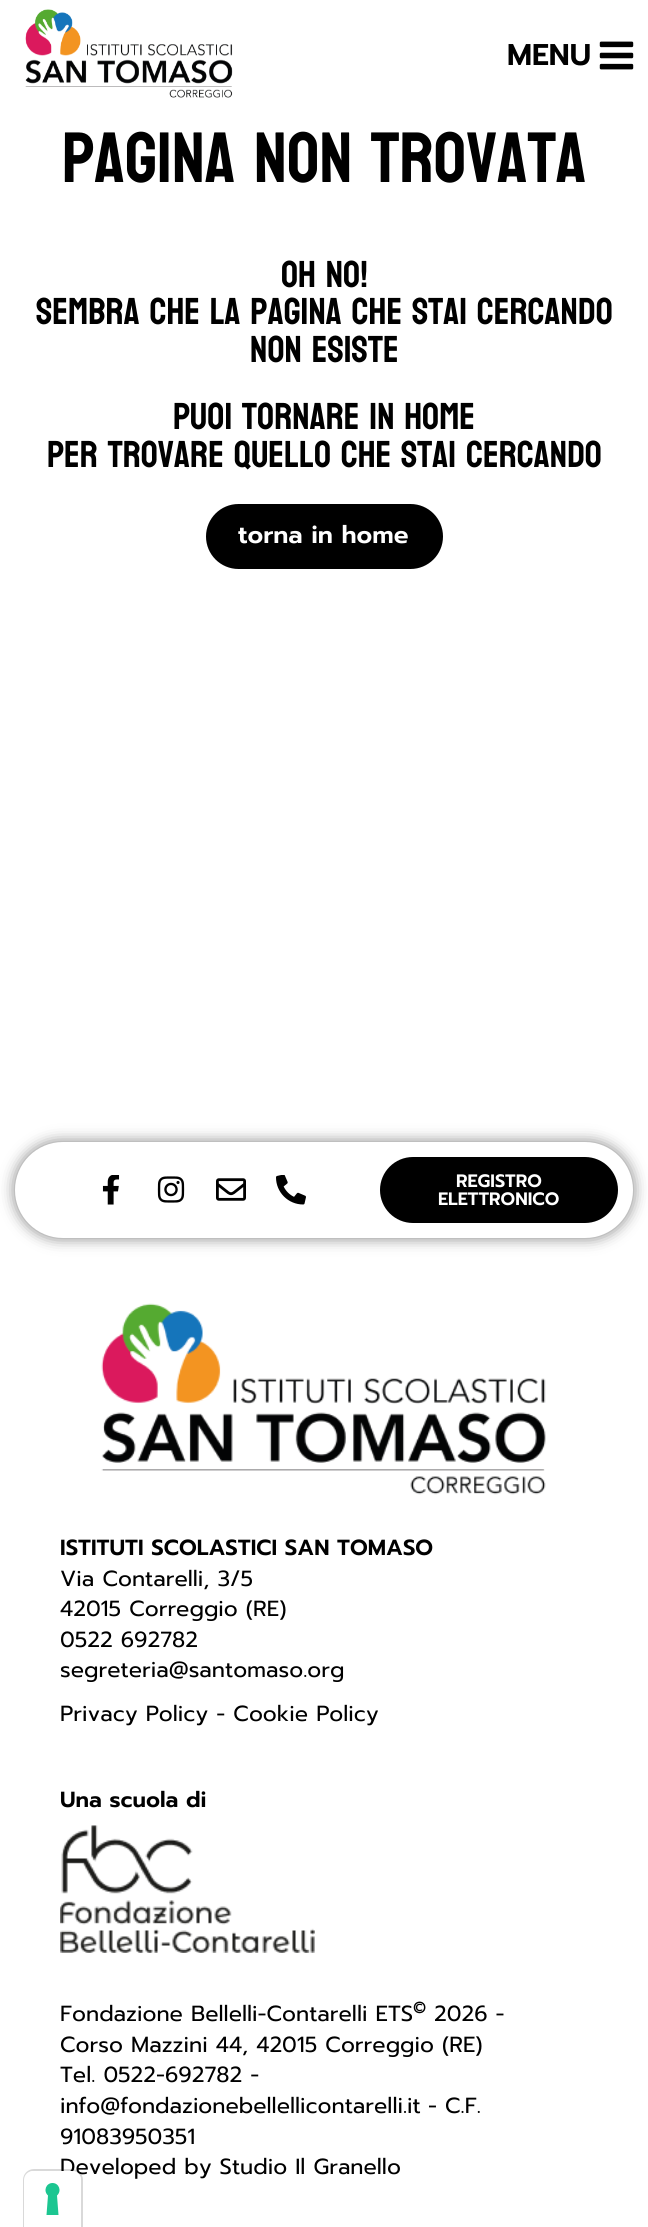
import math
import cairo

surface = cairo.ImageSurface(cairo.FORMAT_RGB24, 648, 2227)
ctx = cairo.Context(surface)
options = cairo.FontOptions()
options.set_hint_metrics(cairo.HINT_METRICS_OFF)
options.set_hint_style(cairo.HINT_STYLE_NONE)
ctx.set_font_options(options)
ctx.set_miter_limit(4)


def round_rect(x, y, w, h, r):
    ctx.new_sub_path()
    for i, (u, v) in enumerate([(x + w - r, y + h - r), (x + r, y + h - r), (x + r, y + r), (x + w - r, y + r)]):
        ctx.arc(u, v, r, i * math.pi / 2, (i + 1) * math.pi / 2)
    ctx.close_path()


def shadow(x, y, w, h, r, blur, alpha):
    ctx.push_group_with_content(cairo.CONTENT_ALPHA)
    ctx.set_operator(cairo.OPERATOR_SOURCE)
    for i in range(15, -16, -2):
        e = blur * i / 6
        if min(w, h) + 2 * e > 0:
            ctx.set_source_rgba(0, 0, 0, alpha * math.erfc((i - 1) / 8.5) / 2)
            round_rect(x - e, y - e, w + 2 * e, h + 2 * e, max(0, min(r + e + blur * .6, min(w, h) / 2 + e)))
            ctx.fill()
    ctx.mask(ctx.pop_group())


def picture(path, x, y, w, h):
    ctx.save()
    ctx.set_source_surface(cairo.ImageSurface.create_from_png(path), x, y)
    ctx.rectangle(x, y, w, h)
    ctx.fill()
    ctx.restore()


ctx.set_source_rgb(1, 1, 1)
ctx.paint()
picture("img1.png", 25, 9, 208, 89)
ctx.select_font_face("Prompt SemiBold")
ctx.set_font_size(30)
ctx.set_source_rgb(0, 0, 0)
ctx.move_to(507, 65)
ctx.show_text("MENU")
picture("img2.png", 599, 41, 35, 29)
ctx.select_font_face("Koulen")
ctx.set_font_size(71.25)
ctx.move_to(62, 182)
ctx.show_text("PAGINA NON TROVATA")
ctx.set_font_size(37.5)
ctx.move_to(281, 287)
ctx.show_text("oh no!")
ctx.move_to(36, 324)
ctx.show_text("sembra che la pagina che stai cercando")
ctx.move_to(250, 362)
ctx.show_text("non esiste")
ctx.move_to(173, 429)
ctx.show_text("PUOI TORNARE IN HOME")
ctx.move_to(47, 467)
ctx.show_text("PER TROVARE QUELLO CHE STAI CERCANDO")
round_rect(207.5, 505.5, 234, 62, 31)
ctx.fill_preserve()
ctx.set_line_width(3)
ctx.stroke()
ctx.select_font_face("Prompt SemiBold")
ctx.set_font_size(24.5)
ctx.set_source_rgb(1, 1, 1)
ctx.move_to(238, 543)
ctx.show_text("torna in home")
ctx.set_source_rgb(0, 0, 0)
shadow(15, 1142, 618, 96, 48, 7.5, 0.5)
ctx.set_source_rgb(1, 1, 1)
round_rect(15, 1142, 618, 96, 48)
ctx.fill()
picture("img3.png", 102, 1175, 18, 30)
picture("img4.png", 157, 1176, 28, 27)
picture("img5.png", 216, 1178, 30, 23)
picture("img6.png", 276, 1175, 30, 30)
ctx.set_source_rgb(0, 0, 0)
round_rect(380, 1157, 238, 66, 33)
ctx.fill()
ctx.set_font_size(18)
ctx.set_source_rgb(1, 1, 1)
ctx.move_to(456, 1187)
ctx.show_text("REGISTRO")
ctx.move_to(438, 1205)
ctx.show_text("ELETTRONICO")
picture("img7.png", 101, 1303, 445, 192)
ctx.set_font_size(21.9)
ctx.set_source_rgb(0, 0, 0)
ctx.move_to(60, 1555)
ctx.show_text("ISTITUTI SCOLASTICI SAN TOMASO")
ctx.select_font_face("Prompt")
ctx.move_to(60, 1586)
ctx.show_text("Via Contarelli, 3/5")
ctx.move_to(60, 1616)
ctx.show_text("42015 Correggio (RE)")
ctx.move_to(60, 1647)
ctx.show_text("0522 692782")
ctx.move_to(60, 1677)
ctx.show_text("segreteria@santomaso.org")
ctx.move_to(60, 1721)
ctx.show_text("Privacy Policy - Cookie Policy")
ctx.select_font_face("Prompt SemiBold")
ctx.move_to(60, 1807)
ctx.show_text("Una scuola di")
picture("img8.png", 60, 1825, 255, 128)
ctx.select_font_face("Prompt")
ctx.move_to(60, 2021)
ctx.show_text("Fondazione Bellelli-Contarelli ETS")
ctx.set_font_size(16)
ctx.move_to(413, 2013)
ctx.show_text("©")
ctx.set_font_size(21.9)
ctx.move_to(434, 2021)
ctx.show_text("2026 -")
ctx.move_to(60, 2052)
ctx.show_text("Corso Mazzini 44, 42015 Correggio (RE)")
ctx.move_to(60, 2082)
ctx.show_text("Tel. 0522-692782 -")
ctx.move_to(60, 2113)
ctx.show_text("info@fondazionebellellicontarelli.it")
ctx.move_to(428, 2113)
ctx.show_text("- C.F.")
ctx.move_to(60, 2144)
ctx.show_text("91083950351")
ctx.move_to(60, 2174)
ctx.show_text("Developed by Studio Il Granello")
ctx.new_path()
ctx.move_to(34, 2170)
ctx.line_to(72, 2170)
ctx.curve_to(77.5, 2170, 82, 2174.5, 82, 2180)
ctx.line_to(82, 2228)
ctx.line_to(24, 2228)
ctx.line_to(24, 2180)
ctx.curve_to(24, 2174.5, 28.5, 2170, 34, 2170)
ctx.close_path()
ctx.set_source_rgba(0, 0, 0, 0.15)
ctx.set_line_width(2)
ctx.stroke()
ctx.set_source_rgb(1, 1, 1)
ctx.new_path()
ctx.move_to(33, 2171)
ctx.line_to(72, 2171)
ctx.curve_to(77, 2171, 81, 2175, 81, 2180)
ctx.line_to(81, 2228)
ctx.line_to(24, 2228)
ctx.line_to(24, 2180)
ctx.curve_to(24, 2175, 28, 2171, 33, 2171)
ctx.close_path()
ctx.fill()
ctx.set_source_rgb(0.11, 0.776, 0.569)
ctx.set_fill_rule(cairo.FILL_RULE_EVEN_ODD)
ctx.new_path()
ctx.move_to(52.5, 2183)
ctx.curve_to(59, 2183, 62, 2191, 57, 2195.5)
ctx.line_to(58.5, 2215)
ctx.line_to(46.5, 2215)
ctx.line_to(48, 2195.5)
ctx.curve_to(43, 2191, 46, 2183, 52.5, 2183)
ctx.close_path()
ctx.fill()
surface.write_to_png("page.png")
